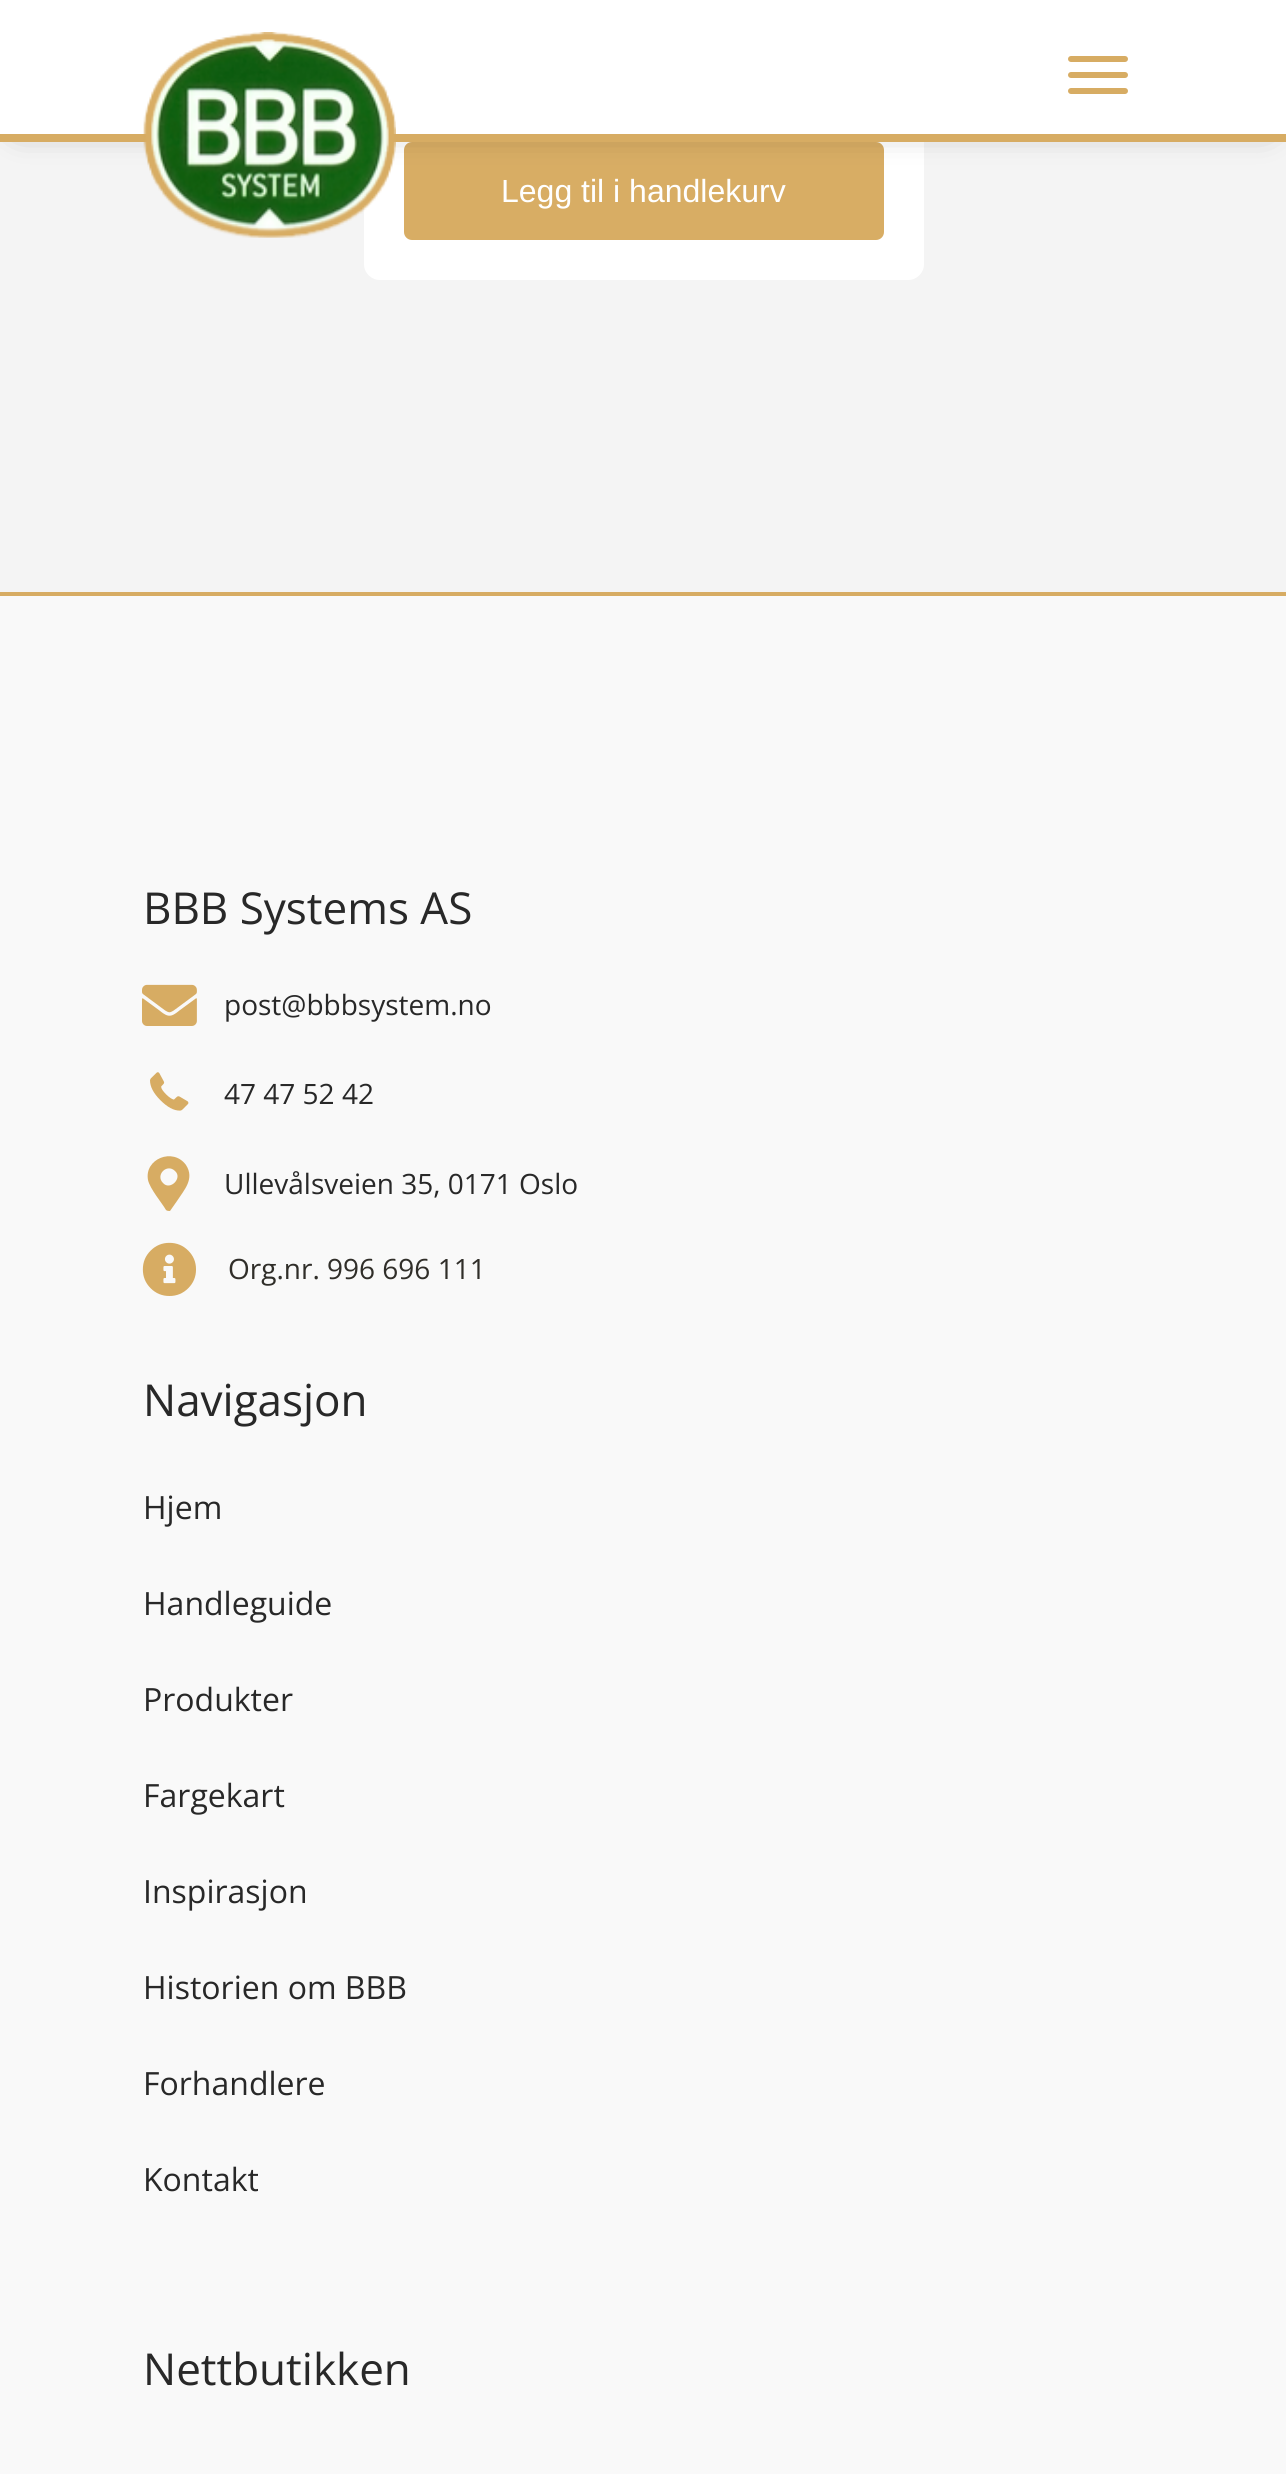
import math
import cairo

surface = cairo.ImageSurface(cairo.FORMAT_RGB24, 1286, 2474)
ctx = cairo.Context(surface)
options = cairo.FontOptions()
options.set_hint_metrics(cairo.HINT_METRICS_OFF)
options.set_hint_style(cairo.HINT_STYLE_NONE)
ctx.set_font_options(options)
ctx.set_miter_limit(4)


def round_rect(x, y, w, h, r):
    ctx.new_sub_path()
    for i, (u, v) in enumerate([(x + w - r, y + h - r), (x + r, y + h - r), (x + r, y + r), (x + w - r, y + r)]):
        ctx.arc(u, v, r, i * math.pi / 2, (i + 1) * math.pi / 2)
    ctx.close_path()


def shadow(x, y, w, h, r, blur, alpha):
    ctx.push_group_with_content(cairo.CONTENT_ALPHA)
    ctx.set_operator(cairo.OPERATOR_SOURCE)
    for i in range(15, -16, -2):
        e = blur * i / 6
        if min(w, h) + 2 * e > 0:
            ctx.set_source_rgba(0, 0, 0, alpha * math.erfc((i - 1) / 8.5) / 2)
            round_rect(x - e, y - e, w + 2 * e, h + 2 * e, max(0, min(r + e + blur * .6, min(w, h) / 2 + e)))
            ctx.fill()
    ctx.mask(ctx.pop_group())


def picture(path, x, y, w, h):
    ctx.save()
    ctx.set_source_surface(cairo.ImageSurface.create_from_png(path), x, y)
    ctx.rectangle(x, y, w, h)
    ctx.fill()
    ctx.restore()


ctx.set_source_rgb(0.957, 0.957, 0.957)
ctx.paint()
ctx.set_source_rgb(1, 1, 1)
round_rect(364, -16, 560, 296, 16)
ctx.fill()
ctx.set_source_rgb(0.847, 0.678, 0.392)
round_rect(404, 142, 480, 98, 8)
ctx.fill()
ctx.set_source_rgb(0, 0, 0)
shadow(20, 20, 1246, 102, 0, 17, 0.58)
ctx.set_source_rgb(1, 1, 1)
ctx.rectangle(0, 0, 1286, 134)
ctx.fill()
ctx.set_source_rgb(0.843, 0.675, 0.388)
ctx.rectangle(0, 134, 1286, 8)
ctx.fill()
picture("img1.png", 143, 32, 253, 206)
round_rect(1068, 72, 60, 6, 3)
ctx.fill()
round_rect(1068, 56, 60, 6, 3)
ctx.fill()
round_rect(1068, 88, 60, 6, 3)
ctx.fill()
ctx.select_font_face("Liberation Sans")
ctx.set_font_size(32)
ctx.set_source_rgb(1, 1, 1)
ctx.move_to(501, 202)
ctx.show_text("Legg til i handlekurv")
ctx.set_source_rgb(0.976, 0.976, 0.976)
ctx.rectangle(0, 596, 1286, 1878)
ctx.fill()
ctx.set_source_rgb(0.843, 0.675, 0.388)
ctx.rectangle(0, 592, 1286, 4)
ctx.fill()
ctx.select_font_face("Open Sans")
ctx.set_font_size(44)
ctx.set_source_rgb(0.157, 0.157, 0.157)
ctx.move_to(143, 924)
ctx.show_text("BBB Systems AS")
picture("img2.png", 142, 984, 55, 42)
ctx.set_font_size(28)
ctx.move_to(224, 1015)
ctx.show_text("post@bbbsystem.no")
picture("img3.png", 150, 1072, 39, 39)
ctx.move_to(224, 1104)
ctx.show_text("47 47 52 42")
ctx.set_source_rgb(0.843, 0.675, 0.388)
ctx.new_path()
ctx.move_to(166, 1210)
ctx.curve_to(162, 1203, 150, 1189, 148, 1180)
ctx.curve_to(144, 1159, 173, 1147, 186, 1165)
ctx.curve_to(195, 1179, 184, 1190, 177, 1201)
ctx.line_to(170, 1211)
ctx.curve_to(169, 1211, 167, 1211, 166, 1210)
ctx.close_path()
ctx.move_to(163, 1183)
ctx.curve_to(170, 1191, 183, 1178, 175, 1171)
ctx.curve_to(167, 1163, 155, 1175, 163, 1183)
ctx.close_path()
ctx.fill()
ctx.set_source_rgb(0.157, 0.157, 0.157)
ctx.move_to(224, 1194)
ctx.show_text("Ullevålsveien 35, 0171 Oslo")
picture("img4.png", 142, 1242, 54, 54)
ctx.set_source_rgb(0.188, 0.18, 0.161)
ctx.move_to(228, 1279)
ctx.show_text("Org.nr. 996 696 111")
ctx.set_font_size(44)
ctx.set_source_rgb(0.157, 0.157, 0.157)
ctx.move_to(143, 1416)
ctx.show_text("Navigasjon")
ctx.set_font_size(32)
ctx.move_to(143, 1519)
ctx.show_text("Hjem")
ctx.move_to(143, 1615)
ctx.show_text("Handleguide")
ctx.move_to(143, 1711)
ctx.show_text("Produkter")
ctx.move_to(143, 1807)
ctx.show_text("Fargekart")
ctx.move_to(143, 1903)
ctx.show_text("Inspirasjon")
ctx.move_to(143, 1999)
ctx.show_text("Historien om BBB")
ctx.move_to(143, 2095)
ctx.show_text("Forhandlere")
ctx.move_to(143, 2191)
ctx.show_text("Kontakt")
ctx.set_font_size(44)
ctx.move_to(143, 2385)
ctx.show_text("Nettbutikken")
surface.write_to_png("page.png")
